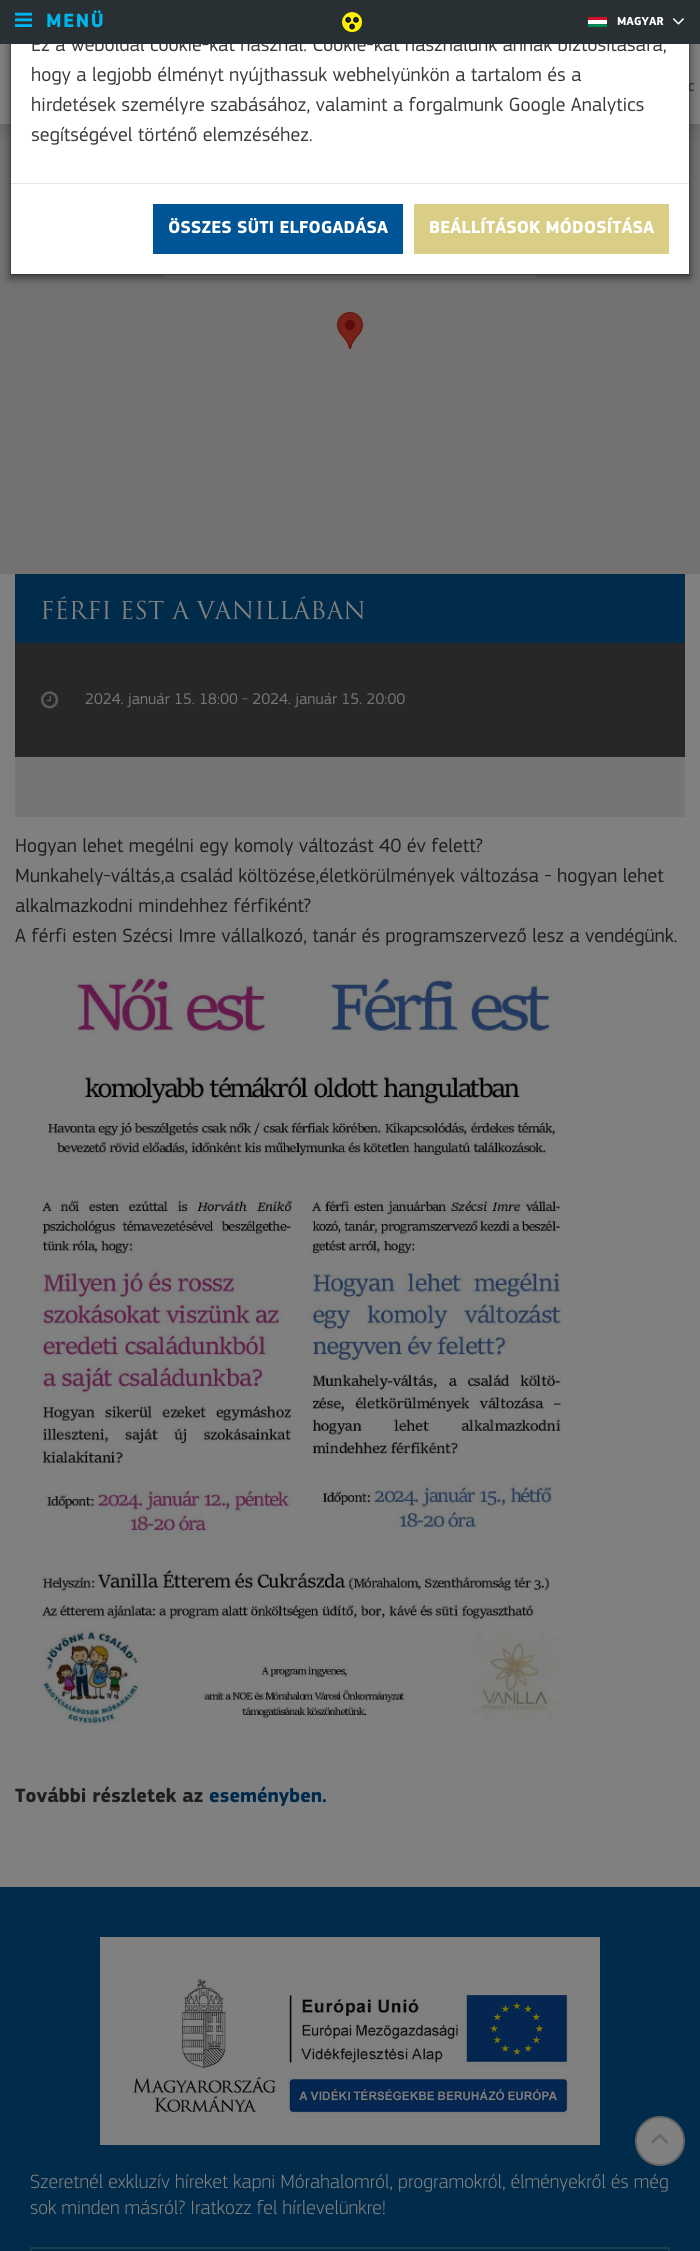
import math
import cairo

surface = cairo.ImageSurface(cairo.FORMAT_RGB24, 700, 2251)
ctx = cairo.Context(surface)
options = cairo.FontOptions()
options.set_hint_metrics(cairo.HINT_METRICS_OFF)
options.set_hint_style(cairo.HINT_STYLE_NONE)
ctx.set_font_options(options)
ctx.set_miter_limit(4)


def round_rect(x, y, w, h, r):
    ctx.new_sub_path()
    for i, (u, v) in enumerate([(x + w - r, y + h - r), (x + r, y + h - r), (x + r, y + r), (x + w - r, y + r)]):
        ctx.arc(u, v, r, i * math.pi / 2, (i + 1) * math.pi / 2)
    ctx.close_path()


def shadow(x, y, w, h, r, blur, alpha):
    ctx.push_group_with_content(cairo.CONTENT_ALPHA)
    ctx.set_operator(cairo.OPERATOR_SOURCE)
    for i in range(15, -16, -2):
        e = blur * i / 6
        if min(w, h) + 2 * e > 0:
            ctx.set_source_rgba(0, 0, 0, alpha * math.erfc((i - 1) / 8.5) / 2)
            round_rect(x - e, y - e, w + 2 * e, h + 2 * e, max(0, min(r + e + blur * .6, min(w, h) / 2 + e)))
            ctx.fill()
    ctx.mask(ctx.pop_group())


def picture(path, x, y, w, h):
    ctx.save()
    ctx.set_source_surface(cairo.ImageSurface.create_from_png(path), x, y)
    ctx.rectangle(x, y, w, h)
    ctx.fill()
    ctx.restore()


ctx.set_source_rgb(0.502, 0.502, 0.502)
ctx.paint()
ctx.set_source_rgb(0.451, 0.447, 0.439)
ctx.rectangle(0, 124, 700, 450)
ctx.fill()
ctx.set_source_rgb(0.502, 0.502, 0.502)
round_rect(163, 129, 375, 150, 5)
ctx.fill()
round_rect(163.5, 129.5, 374, 149, 4.5)
ctx.set_source_rgba(0, 0, 0, 0.12)
ctx.set_line_width(1)
ctx.stroke()
ctx.save()
ctx.rectangle(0, 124, 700, 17)
ctx.clip()
ctx.set_source_rgb(0, 0, 0)
shadow(0, 44, 700, 80, 0, 15, 0.2)
ctx.restore()
picture("img7.png", 689, 82, 6, 10)
ctx.set_source_rgb(0, 0, 0)
shadow(10, 13, 680, 265, 0, 4.5, 0.5)
ctx.set_source_rgb(1, 1, 1)
ctx.rectangle(11, 44, 678, 230)
ctx.fill()
ctx.rectangle(10.5, 10.5, 679, 264)
ctx.set_source_rgba(0, 0, 0, 0.2)
ctx.stroke()
picture("img1.png", 32, 44, 634, 10)
picture("img2.png", 32, 66, 550, 20)
picture("img3.png", 32, 96, 612, 19)
picture("img4.png", 31, 126, 281, 19)
ctx.set_source_rgb(0.898, 0.898, 0.898)
ctx.rectangle(11, 183, 678, 1)
ctx.fill()
ctx.set_source_rgb(0, 0.333, 0.588)
ctx.rectangle(153, 204, 250, 50)
ctx.fill()
picture("img5.png", 169, 217, 219, 17)
ctx.set_source_rgb(0.855, 0.808, 0.529)
ctx.rectangle(414, 204, 255, 50)
ctx.fill()
picture("img6.png", 430, 217, 224, 17)
ctx.set_source_rgb(0.161, 0.188, 0.204)
ctx.rectangle(0, 0, 700, 44)
ctx.fill()
picture("img8.png", 15, 12, 18, 15)
picture("img9.png", 47, 10, 56, 18)
picture("img10.png", 342, 12, 20, 20)
ctx.set_source_rgb(0.808, 0.067, 0.149)
ctx.rectangle(588, 17, 19, 3)
ctx.fill()
picture("img11.png", 617, 16, 47, 10)
picture("img12.png", 672, 18, 12, 7)
ctx.set_source_rgb(1, 1, 1)
ctx.rectangle(588, 20, 19, 4)
ctx.fill()
ctx.set_source_rgb(0, 0.529, 0.318)
ctx.rectangle(588, 24, 19, 3)
ctx.fill()
picture("img13.png", 337, 312, 26, 37)
ctx.set_source_rgb(0, 0.169, 0.294)
ctx.rectangle(15, 574, 670, 69)
ctx.fill()
ctx.select_font_face("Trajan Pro")
ctx.set_font_size(24)
ctx.set_source_rgb(0.502, 0.502, 0.502)
ctx.move_to(40, 619)
ctx.show_text("FÉRFI EST A VANILLÁBAN")
ctx.set_source_rgb(0.153, 0.153, 0.153)
ctx.rectangle(15, 643, 670, 114)
ctx.fill()
picture("img14.png", 41, 691, 18, 18)
picture("img15.png", 85, 692, 320, 16)
ctx.set_source_rgb(0.459, 0.459, 0.459)
ctx.rectangle(15, 757, 670, 60)
ctx.fill()
picture("img16.png", 16, 837, 467, 19)
picture("img17.png", 16, 867, 648, 19)
picture("img18.png", 15, 897, 296, 16)
picture("img19.png", 15, 927, 662, 19)
picture("img20.png", 37, 975, 524, 751)
picture("img21.png", 15, 1786, 188, 17)
picture("img22.png", 209, 1786, 117, 20)
ctx.set_source_rgb(0, 0.169, 0.294)
ctx.rectangle(0, 1887, 700, 364)
ctx.fill()
ctx.set_source_rgb(0.502, 0.502, 0.502)
ctx.arc(660, 2141, 24, 0, 2 * math.pi)
ctx.fill_preserve()
ctx.set_source_rgb(0.396, 0.392, 0.392)
ctx.set_line_width(2)
ctx.stroke()
picture("img23.png", 651, 2133, 17, 11)
picture("img24.png", 100, 1937, 500, 208)
picture("img25.png", 30, 2173, 638, 19)
picture("img26.png", 30, 2199, 355, 16)
ctx.rectangle(31, 2248, 638, 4)
ctx.set_source_rgb(0.094, 0.239, 0.298)
ctx.stroke()
surface.write_to_png("page.png")
